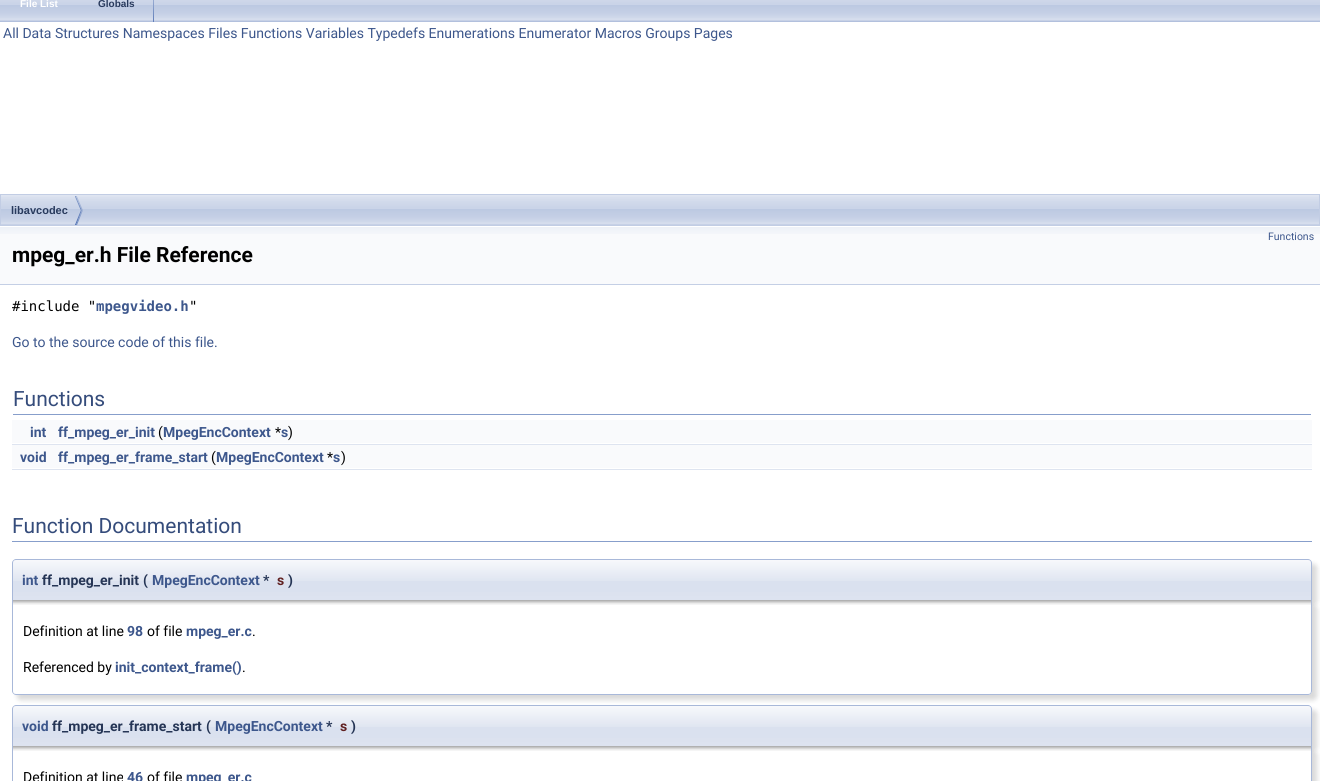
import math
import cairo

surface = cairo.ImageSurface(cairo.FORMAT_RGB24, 1320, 781)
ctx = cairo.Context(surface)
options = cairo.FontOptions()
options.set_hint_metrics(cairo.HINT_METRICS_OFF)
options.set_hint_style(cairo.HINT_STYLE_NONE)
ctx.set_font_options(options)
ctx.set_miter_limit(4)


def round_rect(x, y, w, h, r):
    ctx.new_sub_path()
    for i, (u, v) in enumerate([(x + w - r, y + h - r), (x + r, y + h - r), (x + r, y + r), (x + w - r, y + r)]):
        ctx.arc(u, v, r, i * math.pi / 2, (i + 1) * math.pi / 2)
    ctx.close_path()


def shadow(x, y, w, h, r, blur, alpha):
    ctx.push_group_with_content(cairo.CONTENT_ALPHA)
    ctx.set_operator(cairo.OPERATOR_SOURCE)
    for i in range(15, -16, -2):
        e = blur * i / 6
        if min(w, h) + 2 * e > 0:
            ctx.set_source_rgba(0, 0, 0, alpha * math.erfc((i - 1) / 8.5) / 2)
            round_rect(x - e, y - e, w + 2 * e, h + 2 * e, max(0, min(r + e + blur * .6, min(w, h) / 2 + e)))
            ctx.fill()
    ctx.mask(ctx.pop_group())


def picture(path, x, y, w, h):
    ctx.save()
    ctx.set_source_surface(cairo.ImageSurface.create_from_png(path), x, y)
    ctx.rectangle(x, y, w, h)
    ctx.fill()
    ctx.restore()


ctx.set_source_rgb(1, 1, 1)
ctx.paint()
picture("img1.png", 0, 0, 1320, 22)
ctx.select_font_face("Liberation Sans", cairo.FONT_SLANT_NORMAL, cairo.FONT_WEIGHT_BOLD)
ctx.set_font_size(10)
ctx.set_source_rgb(1, 1, 1)
ctx.move_to(20, 7)
ctx.show_text("File List")
picture("img2.png", 153, 0, 1, 22)
ctx.set_source_rgb(0.157, 0.227, 0.365)
ctx.move_to(98, 7)
ctx.show_text("Globals")
ctx.select_font_face("Roboto")
ctx.set_font_size(14)
ctx.set_source_rgb(0.239, 0.341, 0.549)
ctx.move_to(3, 38)
ctx.show_text("All Data Structures Namespaces Files Functions Variables Typedefs Enumerations Enumerator Macros Groups Pages")
picture("img3.png", 1, 195, 1318, 30)
ctx.rectangle(0.5, 194.5, 1319, 31)
ctx.set_source_rgb(0.761, 0.804, 0.894)
ctx.set_line_width(1)
ctx.stroke()
picture("img4.png", 75, 196, 8, 29)
ctx.select_font_face("Liberation Sans", cairo.FONT_SLANT_NORMAL, cairo.FONT_WEIGHT_BOLD)
ctx.set_font_size(11)
ctx.set_source_rgb(0.157, 0.227, 0.365)
ctx.move_to(11, 214)
ctx.show_text("libavcodec")
ctx.set_source_rgb(0.976, 0.98, 0.988)
ctx.rectangle(0, 234, 1320, 50)
ctx.fill()
picture("img5.png", 0, 226, 1320, 8)
ctx.set_source_rgb(0.769, 0.812, 0.898)
ctx.rectangle(0, 284, 1320, 1)
ctx.fill()
ctx.select_font_face("Roboto")
ctx.set_font_size(10.5)
ctx.set_source_rgb(0.239, 0.341, 0.549)
ctx.move_to(1268, 240)
ctx.show_text("Functions")
ctx.select_font_face("Roboto", cairo.FONT_SLANT_NORMAL, cairo.FONT_WEIGHT_BOLD)
ctx.set_font_size(21)
ctx.set_source_rgb(0, 0, 0)
ctx.move_to(12, 262)
ctx.show_text("mpeg_er.h File Reference")
ctx.select_font_face("DejaVu Sans Mono")
ctx.set_font_size(14)
ctx.move_to(12, 311)
ctx.show_text("#include \"")
ctx.select_font_face("DejaVu Sans Mono", cairo.FONT_SLANT_NORMAL, cairo.FONT_WEIGHT_BOLD)
ctx.set_source_rgb(0.239, 0.341, 0.549)
ctx.move_to(96, 311)
ctx.show_text("mpegvideo.h")
ctx.select_font_face("DejaVu Sans Mono")
ctx.set_source_rgb(0, 0, 0)
ctx.move_to(189, 311)
ctx.show_text("\"")
ctx.select_font_face("Roboto")
ctx.set_source_rgb(0.239, 0.341, 0.549)
ctx.move_to(12, 347)
ctx.show_text("Go to the source code of this file.")
ctx.set_source_rgb(0.529, 0.62, 0.796)
ctx.rectangle(13, 414, 1298, 1)
ctx.fill()
ctx.set_font_size(21)
ctx.set_source_rgb(0.208, 0.298, 0.482)
ctx.move_to(13, 406)
ctx.show_text("Functions")
ctx.set_source_rgb(0.976, 0.98, 0.988)
ctx.rectangle(12, 420, 1300, 23)
ctx.fill()
ctx.select_font_face("Roboto", cairo.FONT_SLANT_NORMAL, cairo.FONT_WEIGHT_BOLD)
ctx.set_font_size(14)
ctx.set_source_rgb(0.239, 0.341, 0.549)
ctx.move_to(30, 437)
ctx.show_text("int")
ctx.move_to(58, 437)
ctx.show_text("ff_mpeg_er_init")
ctx.select_font_face("Roboto")
ctx.set_source_rgb(0, 0, 0)
ctx.move_to(158, 437)
ctx.show_text("(")
ctx.select_font_face("Roboto", cairo.FONT_SLANT_NORMAL, cairo.FONT_WEIGHT_BOLD)
ctx.set_source_rgb(0.239, 0.341, 0.549)
ctx.move_to(163, 437)
ctx.show_text("MpegEncContext")
ctx.select_font_face("Roboto")
ctx.set_source_rgb(0, 0, 0)
ctx.move_to(275, 437)
ctx.show_text("*")
ctx.select_font_face("Roboto", cairo.FONT_SLANT_NORMAL, cairo.FONT_WEIGHT_BOLD)
ctx.set_source_rgb(0.239, 0.341, 0.549)
ctx.move_to(281, 437)
ctx.show_text("s")
ctx.select_font_face("Roboto")
ctx.set_source_rgb(0, 0, 0)
ctx.move_to(288, 437)
ctx.show_text(")")
ctx.set_source_rgb(0.871, 0.894, 0.941)
ctx.rectangle(12, 444, 1300, 1)
ctx.fill()
ctx.set_source_rgb(0.976, 0.98, 0.988)
ctx.rectangle(12, 445, 1300, 23)
ctx.fill()
ctx.select_font_face("Roboto", cairo.FONT_SLANT_NORMAL, cairo.FONT_WEIGHT_BOLD)
ctx.set_source_rgb(0.239, 0.341, 0.549)
ctx.move_to(20, 462)
ctx.show_text("void")
ctx.move_to(58, 462)
ctx.show_text("ff_mpeg_er_frame_start")
ctx.select_font_face("Roboto")
ctx.set_source_rgb(0, 0, 0)
ctx.move_to(211, 462)
ctx.show_text("(")
ctx.select_font_face("Roboto", cairo.FONT_SLANT_NORMAL, cairo.FONT_WEIGHT_BOLD)
ctx.set_source_rgb(0.239, 0.341, 0.549)
ctx.move_to(216, 462)
ctx.show_text("MpegEncContext")
ctx.select_font_face("Roboto")
ctx.set_source_rgb(0, 0, 0)
ctx.move_to(327, 462)
ctx.show_text("*")
ctx.select_font_face("Roboto", cairo.FONT_SLANT_NORMAL, cairo.FONT_WEIGHT_BOLD)
ctx.set_source_rgb(0.239, 0.341, 0.549)
ctx.move_to(333, 462)
ctx.show_text("s")
ctx.select_font_face("Roboto")
ctx.set_source_rgb(0, 0, 0)
ctx.move_to(341, 462)
ctx.show_text(")")
ctx.set_source_rgb(0.871, 0.894, 0.941)
ctx.rectangle(12, 469, 1300, 1)
ctx.fill()
ctx.set_source_rgb(0.529, 0.62, 0.796)
ctx.rectangle(12, 541, 1300, 1)
ctx.fill()
ctx.set_font_size(21)
ctx.set_source_rgb(0.208, 0.298, 0.482)
ctx.move_to(12, 533)
ctx.show_text("Function Documentation")
ctx.set_source_rgb(0, 0, 0)
shadow(17, 564, 1300, 41, 4, 2.5, 0.15)
picture("img6.png", 12, 560, 1300, 40)
ctx.set_source_rgb(0.659, 0.722, 0.851)
ctx.set_fill_rule(cairo.FILL_RULE_EVEN_ODD)
ctx.new_path()
ctx.move_to(16, 559)
ctx.line_to(1308, 559)
ctx.curve_to(1310, 559, 1312, 561, 1312, 563)
ctx.line_to(1312, 600)
ctx.line_to(12, 600)
ctx.line_to(12, 563)
ctx.curve_to(12, 561, 14, 559, 16, 559)
ctx.close_path()
ctx.move_to(16, 560)
ctx.line_to(1308, 560)
ctx.curve_to(1310, 560, 1311, 561, 1311, 563)
ctx.line_to(1311, 600)
ctx.line_to(13, 600)
ctx.line_to(13, 563)
ctx.curve_to(13, 561, 14, 560, 16, 560)
ctx.close_path()
ctx.fill()
ctx.select_font_face("Roboto", cairo.FONT_SLANT_NORMAL, cairo.FONT_WEIGHT_BOLD)
ctx.set_font_size(14)
ctx.set_source_rgb(0.239, 0.341, 0.549)
ctx.move_to(22, 585)
ctx.show_text("int")
ctx.set_source_rgb(0.145, 0.208, 0.333)
ctx.move_to(42, 585)
ctx.show_text("ff_mpeg_er_init")
ctx.move_to(143, 585)
ctx.show_text("(")
ctx.set_source_rgb(0.239, 0.341, 0.549)
ctx.move_to(152, 585)
ctx.show_text("MpegEncContext")
ctx.set_source_rgb(0.145, 0.208, 0.333)
ctx.move_to(263, 585)
ctx.show_text("*")
ctx.set_source_rgb(0.376, 0.125, 0.125)
ctx.move_to(277, 585)
ctx.show_text("s")
ctx.set_source_rgb(0.145, 0.208, 0.333)
ctx.move_to(288, 585)
ctx.show_text(")")
ctx.set_source_rgb(0, 0, 0)
shadow(17, 605, 1300, 95, 4, 2.5, 0.15)
ctx.set_source_rgb(1, 1, 1)
ctx.new_path()
ctx.move_to(12, 600)
ctx.line_to(1312, 600)
ctx.line_to(1312, 691)
ctx.curve_to(1312, 693, 1310, 695, 1308, 695)
ctx.line_to(16, 695)
ctx.curve_to(14, 695, 12, 693, 12, 691)
ctx.close_path()
ctx.fill()
picture("img7.png", 13, 600, 1298, 5)
ctx.set_source_rgb(0.659, 0.722, 0.851)
ctx.new_path()
ctx.move_to(12, 600)
ctx.line_to(1312, 600)
ctx.line_to(1312, 691)
ctx.curve_to(1312, 693, 1310, 695, 1308, 695)
ctx.line_to(16, 695)
ctx.curve_to(14, 695, 12, 693, 12, 691)
ctx.close_path()
ctx.move_to(13, 600)
ctx.line_to(1311, 600)
ctx.line_to(1311, 691)
ctx.curve_to(1311, 693, 1310, 694, 1308, 694)
ctx.line_to(16, 694)
ctx.curve_to(14, 694, 13, 693, 13, 691)
ctx.close_path()
ctx.fill()
ctx.select_font_face("Roboto")
ctx.set_source_rgb(0, 0, 0)
ctx.move_to(23, 636)
ctx.show_text("Definition at line")
ctx.select_font_face("Roboto", cairo.FONT_SLANT_NORMAL, cairo.FONT_WEIGHT_BOLD)
ctx.set_source_rgb(0.239, 0.341, 0.549)
ctx.move_to(127, 636)
ctx.show_text("98")
ctx.select_font_face("Roboto")
ctx.set_source_rgb(0, 0, 0)
ctx.move_to(147, 636)
ctx.show_text("of file")
ctx.select_font_face("Roboto", cairo.FONT_SLANT_NORMAL, cairo.FONT_WEIGHT_BOLD)
ctx.set_source_rgb(0.239, 0.341, 0.549)
ctx.move_to(186, 636)
ctx.show_text("mpeg_er.c")
ctx.select_font_face("Roboto")
ctx.set_source_rgb(0, 0, 0)
ctx.move_to(252, 636)
ctx.show_text(".")
ctx.move_to(23, 672)
ctx.show_text("Referenced by")
ctx.select_font_face("Roboto", cairo.FONT_SLANT_NORMAL, cairo.FONT_WEIGHT_BOLD)
ctx.set_source_rgb(0.239, 0.341, 0.549)
ctx.move_to(115, 672)
ctx.show_text("init_context_frame()")
ctx.select_font_face("Roboto")
ctx.set_source_rgb(0, 0, 0)
ctx.move_to(242, 672)
ctx.show_text(".")
ctx.set_source_rgb(0, 0, 0)
shadow(17, 710, 1300, 41, 4, 2.5, 0.15)
picture("img8.png", 12, 706, 1300, 40)
ctx.set_source_rgb(0.659, 0.722, 0.851)
ctx.new_path()
ctx.move_to(16, 705)
ctx.line_to(1308, 705)
ctx.curve_to(1310, 705, 1312, 707, 1312, 709)
ctx.line_to(1312, 746)
ctx.line_to(12, 746)
ctx.line_to(12, 709)
ctx.curve_to(12, 707, 14, 705, 16, 705)
ctx.close_path()
ctx.move_to(16, 706)
ctx.line_to(1308, 706)
ctx.curve_to(1310, 706, 1311, 707, 1311, 709)
ctx.line_to(1311, 746)
ctx.line_to(13, 746)
ctx.line_to(13, 709)
ctx.curve_to(13, 707, 14, 706, 16, 706)
ctx.close_path()
ctx.fill()
ctx.select_font_face("Roboto", cairo.FONT_SLANT_NORMAL, cairo.FONT_WEIGHT_BOLD)
ctx.set_source_rgb(0.239, 0.341, 0.549)
ctx.move_to(22, 731)
ctx.show_text("void")
ctx.set_source_rgb(0.145, 0.208, 0.333)
ctx.move_to(52, 731)
ctx.show_text("ff_mpeg_er_frame_start")
ctx.move_to(206, 731)
ctx.show_text("(")
ctx.set_source_rgb(0.239, 0.341, 0.549)
ctx.move_to(215, 731)
ctx.show_text("MpegEncContext")
ctx.set_source_rgb(0.145, 0.208, 0.333)
ctx.move_to(326, 731)
ctx.show_text("*")
ctx.set_source_rgb(0.376, 0.125, 0.125)
ctx.move_to(340, 731)
ctx.show_text("s")
ctx.set_source_rgb(0.145, 0.208, 0.333)
ctx.move_to(351, 731)
ctx.show_text(")")
ctx.set_source_rgb(0, 0, 0)
shadow(17, 751, 1300, 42, 4, 2.5, 0.15)
ctx.set_source_rgb(1, 1, 1)
ctx.rectangle(13, 746, 1298, 35)
ctx.fill()
picture("img7.png", 13, 746, 1298, 5)
ctx.set_source_rgb(0.659, 0.722, 0.851)
ctx.new_path()
ctx.move_to(12, 746)
ctx.line_to(1312, 746)
ctx.line_to(1312, 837)
ctx.curve_to(1312, 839, 1310, 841, 1308, 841)
ctx.line_to(16, 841)
ctx.curve_to(14, 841, 12, 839, 12, 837)
ctx.close_path()
ctx.move_to(13, 746)
ctx.line_to(1311, 746)
ctx.line_to(1311, 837)
ctx.curve_to(1311, 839, 1310, 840, 1308, 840)
ctx.line_to(16, 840)
ctx.curve_to(14, 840, 13, 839, 13, 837)
ctx.close_path()
ctx.fill()
ctx.select_font_face("Roboto")
ctx.set_source_rgb(0, 0, 0)
ctx.move_to(23, 782)
ctx.show_text("Definition at line")
ctx.select_font_face("Roboto", cairo.FONT_SLANT_NORMAL, cairo.FONT_WEIGHT_BOLD)
ctx.set_source_rgb(0.239, 0.341, 0.549)
ctx.move_to(127, 782)
ctx.show_text("46")
ctx.select_font_face("Roboto")
ctx.set_source_rgb(0, 0, 0)
ctx.move_to(147, 782)
ctx.show_text("of file")
ctx.select_font_face("Roboto", cairo.FONT_SLANT_NORMAL, cairo.FONT_WEIGHT_BOLD)
ctx.set_source_rgb(0.239, 0.341, 0.549)
ctx.move_to(186, 782)
ctx.show_text("mpeg_er.c")
surface.write_to_png("page.png")
